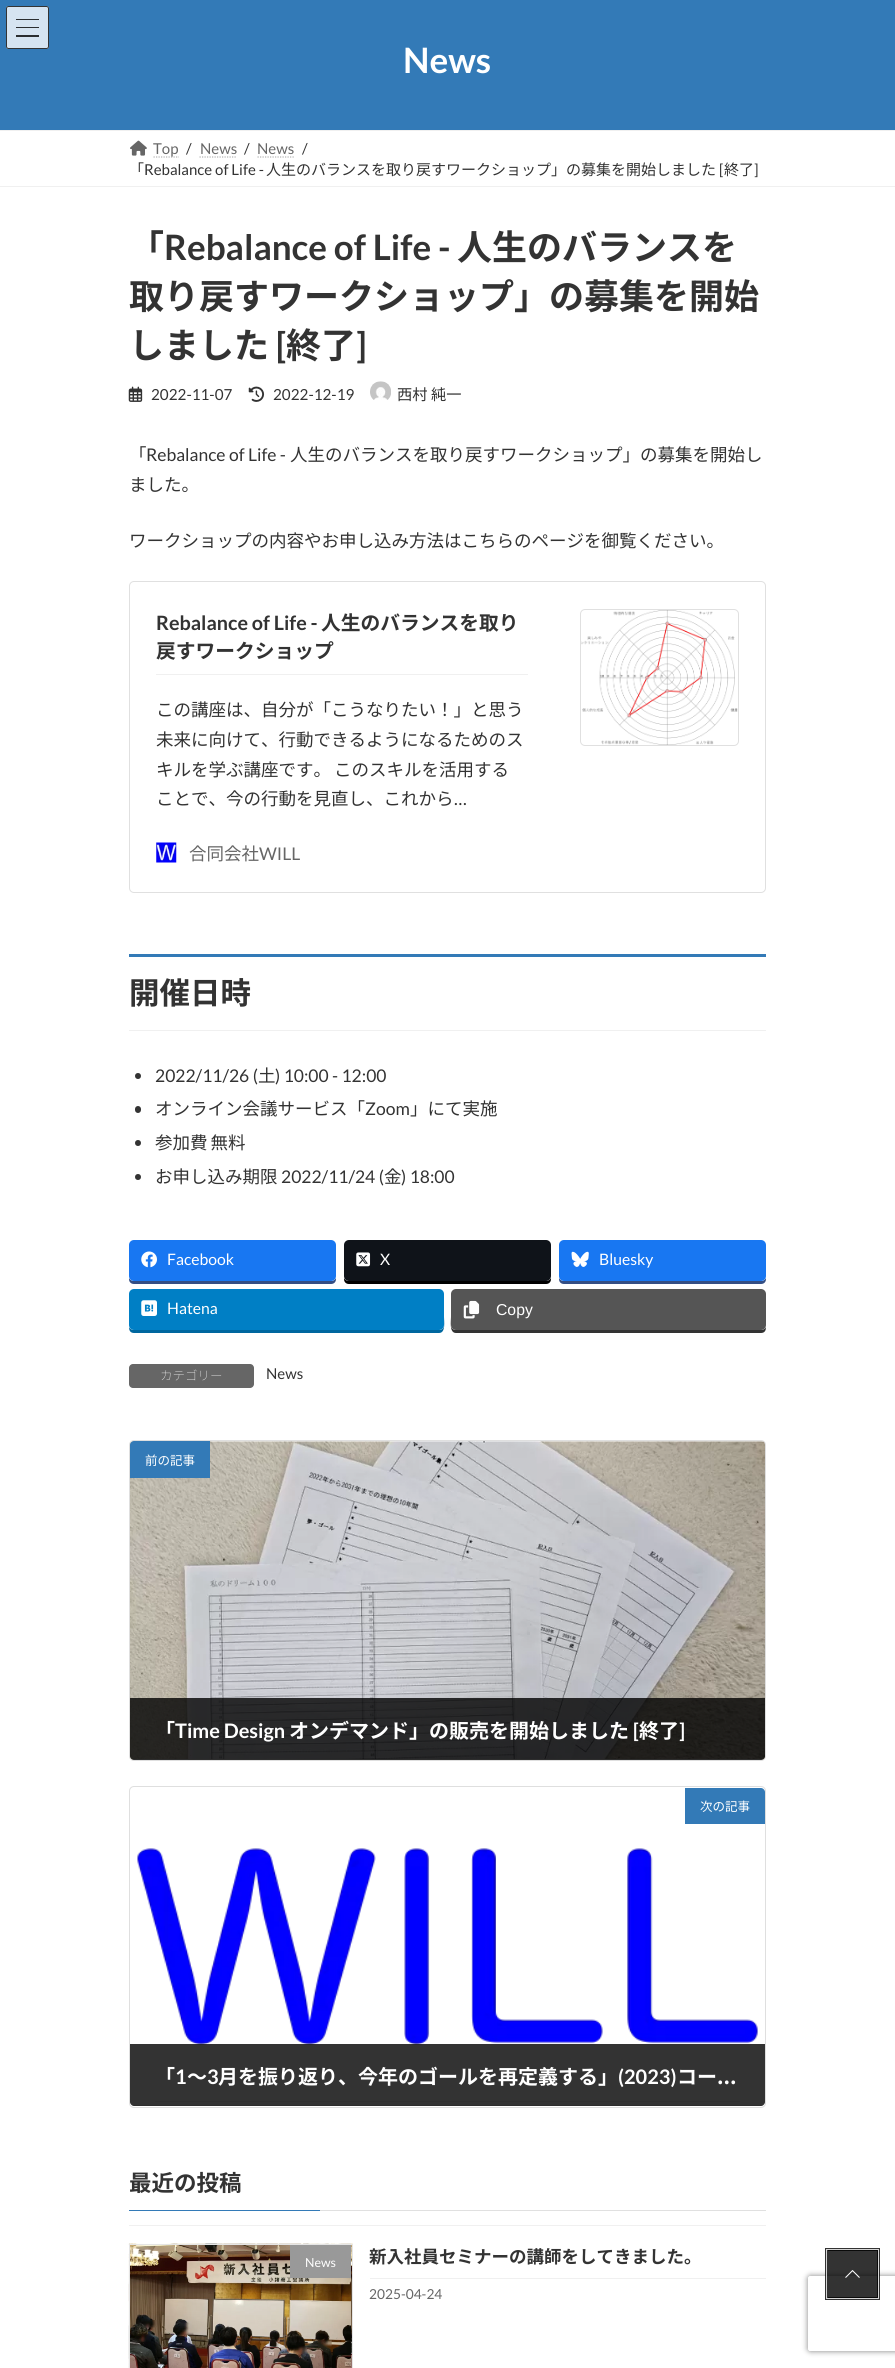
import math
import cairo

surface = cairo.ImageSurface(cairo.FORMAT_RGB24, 895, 2368)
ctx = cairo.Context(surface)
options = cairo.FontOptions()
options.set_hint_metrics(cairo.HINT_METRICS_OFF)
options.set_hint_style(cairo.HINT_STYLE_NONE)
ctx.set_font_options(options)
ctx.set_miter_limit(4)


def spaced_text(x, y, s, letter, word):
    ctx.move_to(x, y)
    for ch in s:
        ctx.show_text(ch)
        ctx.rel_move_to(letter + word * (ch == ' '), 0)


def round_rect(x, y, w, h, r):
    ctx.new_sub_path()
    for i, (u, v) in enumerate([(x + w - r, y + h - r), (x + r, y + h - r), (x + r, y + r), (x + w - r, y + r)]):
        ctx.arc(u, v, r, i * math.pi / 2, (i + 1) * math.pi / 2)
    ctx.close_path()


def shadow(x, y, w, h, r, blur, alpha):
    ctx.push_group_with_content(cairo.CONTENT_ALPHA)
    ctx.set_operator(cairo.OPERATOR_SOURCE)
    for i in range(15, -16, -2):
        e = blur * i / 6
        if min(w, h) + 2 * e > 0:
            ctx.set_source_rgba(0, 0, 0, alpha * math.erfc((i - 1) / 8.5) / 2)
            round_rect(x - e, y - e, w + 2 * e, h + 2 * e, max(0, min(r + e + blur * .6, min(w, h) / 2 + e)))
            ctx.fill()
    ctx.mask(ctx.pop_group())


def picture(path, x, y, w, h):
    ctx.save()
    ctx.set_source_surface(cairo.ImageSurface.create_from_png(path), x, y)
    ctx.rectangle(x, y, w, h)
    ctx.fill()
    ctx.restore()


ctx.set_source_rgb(1, 1, 1)
ctx.paint()
ctx.set_source_rgb(0.2, 0.478, 0.718)
ctx.rectangle(0, 0, 895, 130)
ctx.fill()
ctx.set_source_rgb(0.839, 0.894, 0.945)
round_rect(6, 6, 43, 43, 2.5)
ctx.fill()
ctx.set_source_rgb(0.169, 0.18, 0.188)
ctx.rectangle(16, 19, 23, 1)
ctx.fill()
ctx.rectangle(16, 27, 23, 1)
ctx.fill()
ctx.rectangle(16, 35, 23, 2)
ctx.fill()
round_rect(6.5, 6.5, 42, 42, 2)
ctx.set_source_rgb(0.2, 0.2, 0.2)
ctx.set_line_width(1)
ctx.stroke()
ctx.select_font_face("Lato", cairo.FONT_SLANT_NORMAL, cairo.FONT_WEIGHT_BOLD)
ctx.set_font_size(35)
ctx.set_source_rgb(1, 1, 1)
ctx.move_to(403, 73)
ctx.show_text("News")
ctx.set_source_rgb(0.941, 0.941, 0.941)
ctx.rectangle(0, 130, 895, 1)
ctx.fill()
ctx.rectangle(0, 186, 895, 1)
ctx.fill()
picture("img1.png", 130, 140, 17, 16)
ctx.new_path()
ctx.move_to(153.5, 157)
ctx.line_to(179, 157)
ctx.set_source_rgb(0.702, 0.702, 0.702)
ctx.set_line_width(1.2)
ctx.set_dash([1.25, 1.25])
ctx.stroke()
ctx.select_font_face("Lato")
ctx.set_font_size(15)
ctx.set_source_rgb(0.4, 0.4, 0.4)
ctx.move_to(153, 154)
ctx.show_text("Top")
ctx.set_source_rgb(0.2, 0.2, 0.2)
ctx.move_to(186, 154)
ctx.show_text("/")
ctx.set_source_rgb(0.4, 0.4, 0.4)
ctx.move_to(200, 154)
ctx.show_text("News")
ctx.new_path()
ctx.move_to(199.5, 157)
ctx.line_to(237, 157)
ctx.set_source_rgb(0.702, 0.702, 0.702)
ctx.stroke()
ctx.set_source_rgb(0.2, 0.2, 0.2)
ctx.move_to(244, 154)
ctx.show_text("/")
ctx.set_source_rgb(0.4, 0.4, 0.4)
ctx.move_to(257, 154)
ctx.show_text("News")
ctx.new_path()
ctx.move_to(257.5, 157)
ctx.line_to(294.5, 157)
ctx.set_source_rgb(0.702, 0.702, 0.702)
ctx.stroke()
ctx.set_source_rgb(0.2, 0.2, 0.2)
ctx.move_to(302, 154)
ctx.show_text("/")
ctx.select_font_face("Noto Sans JP")
ctx.move_to(129, 175)
ctx.show_text("「")
ctx.select_font_face("Lato")
ctx.move_to(144, 175)
ctx.show_text("Rebalance of Life -")
ctx.select_font_face("Noto Sans JP")
ctx.move_to(266, 175)
ctx.show_text("人生のバランスを取り戻すワークショップ」の募集を開始しました")
ctx.select_font_face("Lato")
ctx.move_to(719, 175)
ctx.show_text("[")
ctx.select_font_face("Noto Sans JP")
ctx.move_to(724, 175)
ctx.show_text("終了")
ctx.select_font_face("Lato")
ctx.move_to(754, 175)
ctx.show_text("]")
ctx.select_font_face("Noto Sans JP", cairo.FONT_SLANT_NORMAL, cairo.FONT_WEIGHT_BOLD)
ctx.set_font_size(35)
ctx.move_to(129, 260)
ctx.show_text("「")
ctx.select_font_face("Lato", cairo.FONT_SLANT_NORMAL, cairo.FONT_WEIGHT_BOLD)
ctx.move_to(164, 260)
ctx.show_text("Rebalance of Life -")
ctx.select_font_face("Noto Sans JP", cairo.FONT_SLANT_NORMAL, cairo.FONT_WEIGHT_BOLD)
ctx.move_to(457, 260)
ctx.show_text("人生のバランスを")
ctx.move_to(129, 309)
ctx.show_text("取り戻すワークショップ」の募集を開始")
ctx.move_to(129, 358)
ctx.show_text("しました")
ctx.select_font_face("Lato", cairo.FONT_SLANT_NORMAL, cairo.FONT_WEIGHT_BOLD)
ctx.move_to(276, 358)
ctx.show_text("[")
ctx.select_font_face("Noto Sans JP", cairo.FONT_SLANT_NORMAL, cairo.FONT_WEIGHT_BOLD)
ctx.move_to(286, 358)
ctx.show_text("終了")
ctx.select_font_face("Lato", cairo.FONT_SLANT_NORMAL, cairo.FONT_WEIGHT_BOLD)
ctx.move_to(356, 358)
ctx.show_text("]")
picture("img2.png", 128, 386, 15, 16)
ctx.select_font_face("Lato")
ctx.set_font_size(15.25)
ctx.move_to(151, 400)
ctx.show_text("2022-11-07")
picture("img3.png", 248, 386, 17, 16)
ctx.move_to(273, 400)
ctx.show_text("2022-12-19")
picture("img4.png", 370, 381, 21, 19)
ctx.select_font_face("Noto Sans JP")
ctx.move_to(397, 400)
ctx.show_text("西村 純一")
ctx.set_font_size(17.5)
ctx.move_to(129, 461)
ctx.show_text("「")
ctx.select_font_face("Lato")
ctx.move_to(146, 461)
ctx.show_text("Rebalance of Life -")
ctx.select_font_face("Noto Sans JP")
ctx.move_to(290, 461)
ctx.show_text("人生のバランスを取り戻すワークショップ」の募集を開始し")
ctx.move_to(129, 491)
ctx.show_text("ました。")
ctx.move_to(129, 547)
ctx.show_text("ワークショップの内容やお申し込み方法はこちらのページを御覧ください。")
round_rect(129.5, 581.5, 636, 311, 4.5)
ctx.set_source_rgb(0.878, 0.878, 0.878)
ctx.set_line_width(1)
ctx.set_dash([])
ctx.stroke()
ctx.set_source_rgb(0.941, 0.941, 0.941)
ctx.rectangle(156, 674, 372, 1)
ctx.fill()
ctx.select_font_face("Lato", cairo.FONT_SLANT_NORMAL, cairo.FONT_WEIGHT_BOLD)
ctx.set_font_size(19.75)
ctx.set_source_rgb(0.2, 0.2, 0.2)
ctx.move_to(156, 630)
ctx.show_text("Rebalance of Life -")
ctx.select_font_face("Noto Sans JP", cairo.FONT_SLANT_NORMAL, cairo.FONT_WEIGHT_BOLD)
ctx.move_to(321, 630)
ctx.show_text("人生のバランスを取り")
ctx.move_to(156, 658)
ctx.show_text("戻すワークショップ")
ctx.select_font_face("Noto Sans JP")
ctx.set_font_size(17.5)
ctx.move_to(156, 716)
ctx.show_text("この講座は、自分が「こうなりたい！」と思う")
ctx.move_to(156, 746)
ctx.show_text("未来に向けて、行動できるようになるためのス")
spaced_text(156, 776, "キルを学ぶ講座です。 このスキルを活用する", 0, -1)
ctx.move_to(156, 805)
ctx.show_text("ことで、今の行動を見直し、これから")
ctx.select_font_face("Lato")
ctx.move_to(454, 805)
ctx.show_text("…")
picture("img5.png", 156, 842, 21, 21)
ctx.select_font_face("Noto Sans JP")
ctx.set_source_rgb(0.4, 0.4, 0.4)
ctx.move_to(189, 860)
ctx.show_text("合同会社")
ctx.select_font_face("Lato")
ctx.move_to(259, 860)
ctx.show_text("WILL")
round_rect(580.5, 609.5, 158, 136, 4.5)
ctx.set_source_rgb(0.878, 0.878, 0.878)
ctx.stroke()
picture("img6.png", 581, 610, 157, 135)
ctx.set_source_rgb(0.2, 0.478, 0.718)
ctx.rectangle(129, 954, 637, 3)
ctx.fill()
ctx.set_source_rgb(0.941, 0.941, 0.941)
ctx.rectangle(129, 1030, 637, 1)
ctx.fill()
ctx.select_font_face("Noto Sans JP", cairo.FONT_SLANT_NORMAL, cairo.FONT_WEIGHT_BOLD)
ctx.set_font_size(30.5)
ctx.set_source_rgb(0.2, 0.2, 0.2)
ctx.move_to(129, 1004)
ctx.show_text("開催日時")
ctx.new_path()
ctx.arc(138, 1076, 3, 0, 2 * math.pi)
ctx.fill()
ctx.select_font_face("Lato")
ctx.set_font_size(17.5)
ctx.move_to(155, 1082)
ctx.show_text("2022/11/26 (")
ctx.select_font_face("Noto Sans JP")
ctx.move_to(258, 1082)
ctx.show_text("土")
ctx.select_font_face("Lato")
ctx.move_to(275, 1082)
ctx.show_text(") 10:00 - 12:00")
round_rect(135, 1106, 6, 7, 3)
ctx.fill()
ctx.select_font_face("Noto Sans JP")
ctx.move_to(155, 1115)
ctx.show_text("オンライン会議サービス「")
ctx.select_font_face("Lato")
ctx.move_to(365, 1115)
ctx.show_text("Zoom")
ctx.select_font_face("Noto Sans JP")
ctx.move_to(410, 1115)
ctx.show_text("」にて実施")
ctx.new_path()
ctx.arc(138, 1143, 3, 0, 2 * math.pi)
ctx.fill()
spaced_text(155, 1149, "参加費 無料", 0, -1)
ctx.new_path()
ctx.arc(138, 1177, 3, 0, 2 * math.pi)
ctx.fill()
ctx.move_to(155, 1183)
ctx.show_text("お申し込み期限")
ctx.select_font_face("Lato")
ctx.move_to(281, 1183)
ctx.show_text("2022/11/24 (")
ctx.select_font_face("Noto Sans JP")
ctx.move_to(384, 1183)
ctx.show_text("金")
ctx.select_font_face("Lato")
ctx.move_to(401, 1183)
ctx.show_text(") 18:00")
ctx.set_source_rgb(0.204, 0.306, 0.518)
ctx.new_path()
ctx.move_to(129, 1278)
ctx.line_to(129, 1279)
ctx.curve_to(129, 1282, 131, 1284, 134, 1284)
ctx.line_to(331, 1284)
ctx.curve_to(334, 1284, 336, 1282, 336, 1279)
ctx.line_to(336, 1278)
ctx.curve_to(335, 1280, 333, 1281, 331, 1281)
ctx.line_to(134, 1281)
ctx.curve_to(132, 1281, 130, 1280, 129, 1278)
ctx.close_path()
ctx.fill()
ctx.set_source_rgb(0.094, 0.467, 0.949)
round_rect(129, 1240, 207, 41, 5)
ctx.fill()
picture("img7.png", 141, 1251, 16, 17)
ctx.set_font_size(15.75)
ctx.set_source_rgb(1, 1, 1)
ctx.move_to(167, 1265)
ctx.show_text("Facebook")
ctx.set_source_rgb(0, 0, 0)
ctx.new_path()
ctx.move_to(344, 1278)
ctx.line_to(344, 1279)
ctx.curve_to(344, 1282, 346, 1284, 349, 1284)
ctx.line_to(546, 1284)
ctx.curve_to(549, 1284, 551, 1282, 551, 1279)
ctx.line_to(551, 1278)
ctx.curve_to(550, 1280, 548, 1281, 546, 1281)
ctx.line_to(349, 1281)
ctx.curve_to(347, 1281, 345, 1280, 344, 1278)
ctx.close_path()
ctx.fill()
ctx.set_source_rgb(0.059, 0.078, 0.098)
round_rect(344, 1240, 207, 41, 5)
ctx.fill()
picture("img8.png", 356, 1252, 15, 15)
ctx.set_source_rgb(1, 1, 1)
ctx.move_to(380, 1265)
ctx.show_text("X")
ctx.set_source_rgb(0.204, 0.306, 0.518)
ctx.new_path()
ctx.move_to(559, 1278)
ctx.line_to(559, 1279)
ctx.curve_to(559, 1282, 561, 1284, 564, 1284)
ctx.line_to(761, 1284)
ctx.curve_to(764, 1284, 766, 1282, 766, 1279)
ctx.line_to(766, 1278)
ctx.curve_to(765, 1280, 763, 1281, 761, 1281)
ctx.line_to(564, 1281)
ctx.curve_to(562, 1281, 560, 1280, 559, 1278)
ctx.close_path()
ctx.fill()
ctx.set_source_rgb(0.094, 0.467, 0.949)
round_rect(559, 1240, 207, 41, 5)
ctx.fill()
picture("img9.png", 571, 1251, 18, 16)
ctx.set_source_rgb(1, 1, 1)
ctx.move_to(599, 1265)
ctx.show_text("Bluesky")
ctx.set_source_rgb(0, 0.404, 0.624)
ctx.new_path()
ctx.move_to(129, 1327)
ctx.curve_to(129, 1330, 130, 1333, 134, 1333)
ctx.line_to(439, 1333)
ctx.curve_to(446, 1333, 444, 1321, 444, 1317)
ctx.line_to(444, 1294)
ctx.line_to(444, 1325)
ctx.curve_to(444, 1328, 442, 1330, 439, 1330)
ctx.line_to(134, 1330)
ctx.curve_to(132, 1330, 130, 1329, 129, 1327)
ctx.close_path()
ctx.fill()
ctx.set_source_rgb(0, 0.498, 0.773)
round_rect(129, 1289, 315, 41, 5)
ctx.fill()
picture("img10.png", 141, 1300, 16, 16)
ctx.set_source_rgb(1, 1, 1)
ctx.move_to(167, 1314)
ctx.show_text("Hatena")
ctx.set_source_rgb(0.2, 0.2, 0.2)
ctx.new_path()
ctx.move_to(451, 1294)
ctx.line_to(451, 1317)
ctx.curve_to(451, 1321, 449, 1333, 456, 1333)
ctx.line_to(761, 1333)
ctx.curve_to(765, 1333, 766, 1330, 766, 1327)
ctx.curve_to(765, 1329, 763, 1330, 761, 1330)
ctx.line_to(456, 1330)
ctx.curve_to(453, 1330, 451, 1328, 451, 1325)
ctx.close_path()
ctx.fill()
ctx.set_source_rgb(0.333, 0.333, 0.333)
round_rect(451, 1289, 315, 41, 5)
ctx.fill()
picture("img11.png", 463, 1300, 17, 19)
ctx.select_font_face("Liberation Sans")
ctx.set_source_rgb(1, 1, 1)
ctx.move_to(496, 1315)
ctx.show_text("Copy")
ctx.set_source_rgb(0.4, 0.4, 0.4)
round_rect(129, 1364, 125, 24, 4)
ctx.fill()
ctx.select_font_face("Noto Sans JP Thin")
ctx.set_font_size(12.5)
ctx.set_source_rgb(1, 1, 1)
ctx.move_to(160, 1380)
ctx.show_text("カテゴリー")
ctx.select_font_face("Lato")
ctx.set_font_size(15)
ctx.set_source_rgb(0.2, 0.2, 0.2)
ctx.move_to(266, 1379)
ctx.show_text("News")
round_rect(129.5, 1440.5, 636, 320, 4.5)
ctx.set_source_rgb(0.875, 0.875, 0.875)
ctx.stroke()
picture("img12.png", 130, 1441, 635, 319)
ctx.save()
round_rect(130, 1441, 635, 319, 4)
ctx.clip()
ctx.set_source_rgb(0.898, 0.898, 0.898)
ctx.rectangle(130, 1759, 635, 1)
ctx.fill()
ctx.restore()
ctx.set_source_rgb(0.2, 0.478, 0.718)
ctx.new_path()
ctx.move_to(134, 1441)
ctx.line_to(210, 1441)
ctx.line_to(210, 1478)
ctx.line_to(130, 1478)
ctx.line_to(130, 1445)
ctx.curve_to(130, 1443, 132, 1441, 134, 1441)
ctx.close_path()
ctx.fill()
ctx.select_font_face("Noto Sans JP")
ctx.set_font_size(12.5)
ctx.set_source_rgb(1, 1, 1)
ctx.move_to(145, 1465)
ctx.show_text("前の記事")
ctx.set_source_rgba(0, 0, 0, 0.8)
ctx.new_path()
ctx.move_to(130, 1698)
ctx.line_to(765, 1698)
ctx.line_to(765, 1756)
ctx.curve_to(765, 1758, 763, 1760, 761, 1760)
ctx.line_to(134, 1760)
ctx.curve_to(132, 1760, 130, 1758, 130, 1756)
ctx.close_path()
ctx.fill()
ctx.set_source_rgba(0, 0, 0, 0.06)
ctx.rectangle(190, 1755, 1, 1)
ctx.fill()
ctx.select_font_face("Noto Sans JP", cairo.FONT_SLANT_NORMAL, cairo.FONT_WEIGHT_BOLD)
ctx.set_font_size(20)
ctx.set_source_rgb(1, 1, 1)
ctx.move_to(155, 1738)
ctx.show_text("「")
ctx.select_font_face("Lato", cairo.FONT_SLANT_NORMAL, cairo.FONT_WEIGHT_BOLD)
ctx.move_to(175, 1738)
ctx.show_text("Time Design")
ctx.select_font_face("Noto Sans JP", cairo.FONT_SLANT_NORMAL, cairo.FONT_WEIGHT_BOLD)
ctx.move_to(289, 1738)
ctx.show_text("オンデマンド」の販売を開始しました")
ctx.select_font_face("Lato", cairo.FONT_SLANT_NORMAL, cairo.FONT_WEIGHT_BOLD)
ctx.move_to(633, 1738)
ctx.show_text("[")
ctx.select_font_face("Noto Sans JP", cairo.FONT_SLANT_NORMAL, cairo.FONT_WEIGHT_BOLD)
ctx.move_to(639, 1738)
ctx.show_text("終了")
ctx.select_font_face("Lato", cairo.FONT_SLANT_NORMAL, cairo.FONT_WEIGHT_BOLD)
ctx.move_to(679, 1738)
ctx.show_text("]")
round_rect(129.5, 1786.5, 636, 321, 4.5)
ctx.set_source_rgb(0.875, 0.875, 0.875)
ctx.stroke()
picture("img13.png", 137, 1848, 621, 197)
ctx.save()
round_rect(130, 1788, 635, 318, 4)
ctx.clip()
ctx.set_source_rgb(0.898, 0.898, 0.898)
ctx.rectangle(130, 2105, 635, 1)
ctx.fill()
ctx.restore()
ctx.set_source_rgb(0.2, 0.478, 0.718)
ctx.new_path()
ctx.move_to(685, 1788)
ctx.line_to(761, 1788)
ctx.curve_to(763, 1788, 765, 1790, 765, 1792)
ctx.line_to(765, 1824)
ctx.line_to(685, 1824)
ctx.close_path()
ctx.fill()
ctx.select_font_face("Noto Sans JP")
ctx.set_font_size(12.5)
ctx.set_source_rgb(1, 1, 1)
ctx.move_to(700, 1811)
ctx.show_text("次の記事")
ctx.set_source_rgba(0, 0, 0, 0.8)
ctx.new_path()
ctx.move_to(130, 2044)
ctx.line_to(765, 2044)
ctx.line_to(765, 2102)
ctx.curve_to(765, 2104, 763, 2106, 761, 2106)
ctx.line_to(134, 2106)
ctx.curve_to(132, 2106, 130, 2104, 130, 2102)
ctx.close_path()
ctx.fill()
ctx.set_source_rgb(0.188, 0.188, 0.188)
ctx.rectangle(155, 2101, 585, 1)
ctx.fill()
ctx.select_font_face("Noto Sans JP", cairo.FONT_SLANT_NORMAL, cairo.FONT_WEIGHT_BOLD)
ctx.set_font_size(20)
ctx.set_source_rgb(1, 1, 1)
ctx.move_to(155, 2084)
ctx.show_text("「")
ctx.select_font_face("Lato", cairo.FONT_SLANT_NORMAL, cairo.FONT_WEIGHT_BOLD)
ctx.move_to(175, 2084)
ctx.show_text("1")
ctx.select_font_face("Noto Sans JP", cairo.FONT_SLANT_NORMAL, cairo.FONT_WEIGHT_BOLD)
ctx.move_to(187, 2084)
ctx.show_text("〜")
ctx.select_font_face("Lato", cairo.FONT_SLANT_NORMAL, cairo.FONT_WEIGHT_BOLD)
ctx.move_to(207, 2084)
ctx.show_text("3")
ctx.select_font_face("Noto Sans JP", cairo.FONT_SLANT_NORMAL, cairo.FONT_WEIGHT_BOLD)
ctx.move_to(218, 2084)
ctx.show_text("月を振り返り、今年のゴールを再定義する」")
ctx.select_font_face("Lato", cairo.FONT_SLANT_NORMAL, cairo.FONT_WEIGHT_BOLD)
ctx.move_to(618, 2084)
ctx.show_text("(2023)")
ctx.select_font_face("Noto Sans JP", cairo.FONT_SLANT_NORMAL, cairo.FONT_WEIGHT_BOLD)
ctx.move_to(677, 2084)
ctx.show_text("コー...")
ctx.set_source_rgb(0.878, 0.878, 0.878)
ctx.rectangle(320, 2210, 446, 1)
ctx.fill()
ctx.set_font_size(22.5)
ctx.set_source_rgb(0.2, 0.2, 0.2)
ctx.move_to(129, 2191)
ctx.show_text("最近の投稿")
ctx.set_source_rgb(0.2, 0.478, 0.718)
ctx.rectangle(129, 2210, 191, 1)
ctx.fill()
ctx.set_source_rgb(0.941, 0.941, 0.941)
ctx.rectangle(129, 2225, 637, 1)
ctx.fill()
picture("img14.png", 128, 2243, 225, 125)
ctx.rectangle(129.5, 2244.5, 223, 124)
ctx.set_source_rgb(0.898, 0.898, 0.898)
ctx.stroke()
ctx.set_source_rgb(0.6, 0.6, 0.6)
ctx.rectangle(290, 2245, 61, 33)
ctx.fill()
ctx.select_font_face("Lato")
ctx.set_font_size(12.5)
ctx.set_source_rgb(1, 1, 1)
ctx.move_to(305, 2267)
ctx.show_text("News")
ctx.set_source_rgb(0.941, 0.941, 0.941)
ctx.rectangle(370, 2278, 396, 1)
ctx.fill()
ctx.select_font_face("Noto Sans JP", cairo.FONT_SLANT_NORMAL, cairo.FONT_WEIGHT_BOLD)
ctx.set_font_size(17.5)
ctx.set_source_rgb(0.2, 0.2, 0.2)
ctx.move_to(369, 2263)
ctx.show_text("新入社員セミナーの講師をしてきました。")
ctx.select_font_face("Lato")
ctx.set_font_size(13.75)
ctx.set_source_rgb(0.4, 0.4, 0.4)
ctx.move_to(369, 2299)
ctx.show_text("2025-04-24")
ctx.save()
ctx.set_fill_rule(cairo.FILL_RULE_EVEN_ODD)
ctx.new_path()
ctx.move_to(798, 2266)
ctx.line_to(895, 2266)
ctx.line_to(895, 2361)
ctx.line_to(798, 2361)
ctx.close_path()
ctx.move_to(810.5, 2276)
ctx.line_to(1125.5, 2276)
ctx.curve_to(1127, 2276, 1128, 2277, 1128, 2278.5)
ctx.line_to(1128, 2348.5)
ctx.curve_to(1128, 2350, 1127, 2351, 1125.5, 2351)
ctx.line_to(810.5, 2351)
ctx.curve_to(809, 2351, 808, 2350, 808, 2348.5)
ctx.line_to(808, 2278.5)
ctx.curve_to(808, 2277, 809, 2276, 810.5, 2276)
ctx.close_path()
ctx.clip()
ctx.set_source_rgb(0.502, 0.502, 0.502)
shadow(808, 2276, 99, 75, 2.5, 3, 1)
ctx.restore()
ctx.rectangle(826.5, 2249.5, 52, 49)
ctx.set_source_rgba(0, 0, 0, 0.8)
ctx.set_line_width(3)
ctx.stroke()
ctx.rectangle(826.5, 2249.5, 52, 49)
ctx.set_source_rgba(1, 1, 1, 0.8)
ctx.set_line_width(1)
ctx.stroke()
ctx.set_source_rgba(0, 0, 0, 0.8)
ctx.rectangle(828, 2250, 50, 48)
ctx.fill()
picture("img15.png", 845, 2270, 15, 8)
surface.write_to_png("page.png")
